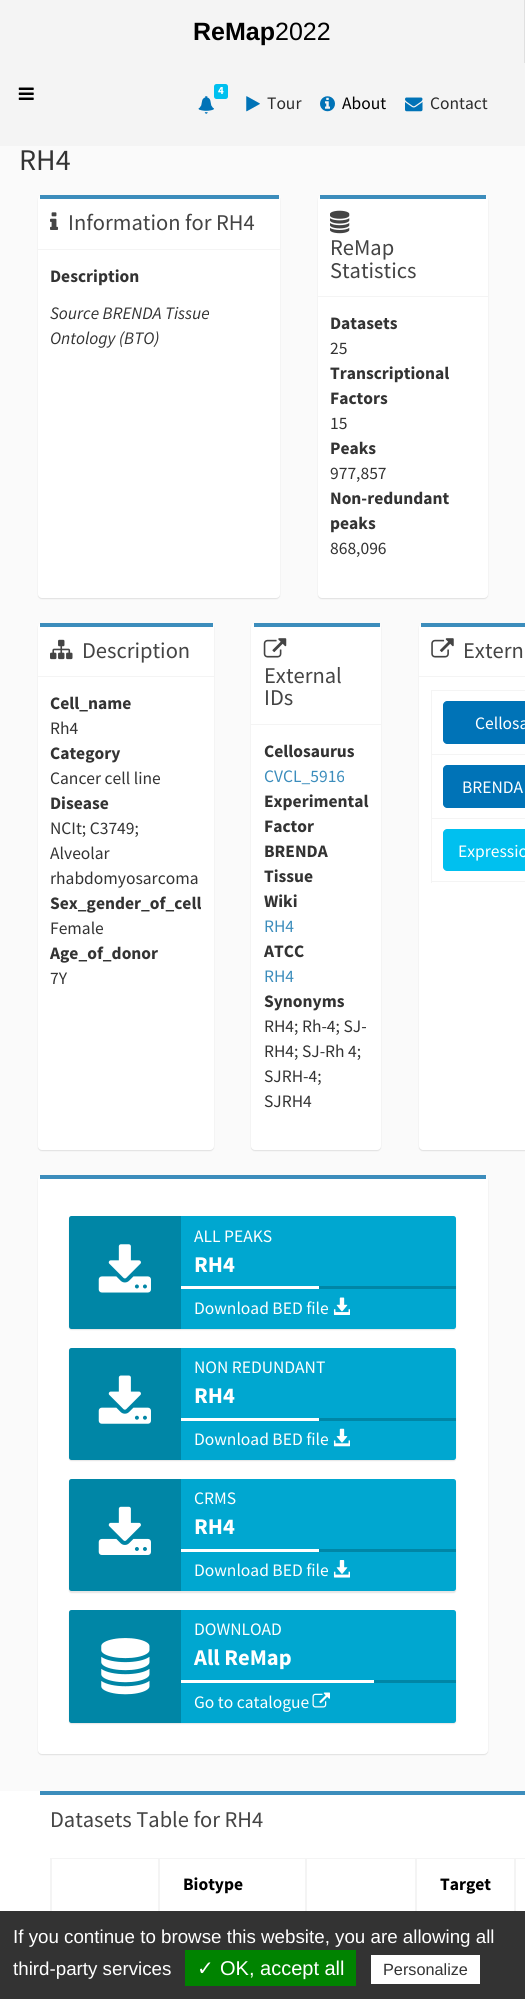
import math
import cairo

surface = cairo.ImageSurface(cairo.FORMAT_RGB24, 525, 1999)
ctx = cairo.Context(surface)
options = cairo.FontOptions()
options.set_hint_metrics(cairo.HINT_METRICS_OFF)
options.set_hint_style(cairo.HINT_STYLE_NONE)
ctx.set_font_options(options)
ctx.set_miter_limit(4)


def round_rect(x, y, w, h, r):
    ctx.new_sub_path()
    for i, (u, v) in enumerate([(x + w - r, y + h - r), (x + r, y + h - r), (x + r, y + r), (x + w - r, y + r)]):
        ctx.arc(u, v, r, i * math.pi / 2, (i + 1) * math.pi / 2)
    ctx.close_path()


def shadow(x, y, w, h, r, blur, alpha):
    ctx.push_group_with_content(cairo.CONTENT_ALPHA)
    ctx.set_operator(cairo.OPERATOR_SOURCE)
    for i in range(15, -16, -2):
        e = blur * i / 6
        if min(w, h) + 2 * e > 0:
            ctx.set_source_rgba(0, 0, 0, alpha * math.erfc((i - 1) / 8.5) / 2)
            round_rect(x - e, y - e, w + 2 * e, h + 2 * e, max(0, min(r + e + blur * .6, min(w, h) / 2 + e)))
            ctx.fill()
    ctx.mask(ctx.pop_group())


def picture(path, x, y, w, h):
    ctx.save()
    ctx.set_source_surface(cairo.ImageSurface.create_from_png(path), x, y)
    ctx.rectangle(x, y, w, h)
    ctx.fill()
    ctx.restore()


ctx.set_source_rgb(0.98, 0.98, 0.98)
ctx.paint()
ctx.set_source_rgb(0.957, 0.957, 0.957)
ctx.rectangle(0, 0, 524, 63)
ctx.fill()
ctx.set_source_rgb(0.878, 0.878, 0.878)
ctx.rectangle(524, 0, 1, 63)
ctx.fill()
ctx.select_font_face("Liberation Sans", cairo.FONT_SLANT_NORMAL, cairo.FONT_WEIGHT_BOLD)
ctx.set_font_size(25)
ctx.set_source_rgb(0, 0, 0)
ctx.move_to(193, 40)
ctx.show_text("ReMap")
ctx.select_font_face("Liberation Sans")
ctx.move_to(275, 40)
ctx.show_text("2022")
ctx.set_source_rgb(0.957, 0.957, 0.957)
ctx.rectangle(0, 63, 525, 83)
ctx.fill()
picture("img1.png", 18, 87, 16, 13)
ctx.set_source_rgb(0, 0.753, 0.937)
round_rect(214, 84, 14, 15, 2.5)
ctx.fill()
ctx.select_font_face("Source Sans Pro", cairo.FONT_SLANT_NORMAL, cairo.FONT_WEIGHT_BOLD)
ctx.set_font_size(11)
ctx.set_source_rgb(1, 1, 1)
ctx.move_to(218, 94)
ctx.show_text("4")
picture("img2.png", 198, 96, 16, 18)
picture("img3.png", 246, 96, 14, 16)
ctx.select_font_face("Source Sans Pro")
ctx.set_font_size(17.5)
ctx.set_source_rgb(0.173, 0.173, 0.173)
ctx.move_to(267, 109)
ctx.show_text("Tour")
picture("img4.png", 320, 96, 15, 16)
ctx.set_source_rgb(0, 0, 0)
ctx.move_to(342, 109)
ctx.show_text("About")
picture("img5.png", 405, 97, 18, 15)
ctx.set_source_rgb(0.173, 0.173, 0.173)
ctx.move_to(430, 109)
ctx.show_text("Contact")
ctx.set_font_size(30)
ctx.set_source_rgb(0.2, 0.2, 0.2)
ctx.move_to(19, 170)
ctx.show_text("RH4")
ctx.set_source_rgb(0, 0, 0)
shadow(38, 196, 242, 403, 4, 0.5, 0.1)
ctx.set_source_rgb(1, 1, 1)
round_rect(38, 195, 242, 403, 4)
ctx.fill()
ctx.set_source_rgb(0.235, 0.553, 0.737)
ctx.rectangle(40, 195, 239, 4)
ctx.fill()
ctx.set_source_rgb(0.957, 0.957, 0.957)
ctx.rectangle(38, 249, 242, 1)
ctx.fill()
picture("img6.png", 50, 212, 9, 18)
ctx.set_font_size(22.5)
ctx.set_source_rgb(0.267, 0.267, 0.267)
ctx.move_to(68, 230)
ctx.show_text("Information for RH4")
ctx.select_font_face("Source Sans Pro", cairo.FONT_SLANT_NORMAL, cairo.FONT_WEIGHT_BOLD)
ctx.set_font_size(17.5)
ctx.set_source_rgb(0.2, 0.2, 0.2)
ctx.move_to(50, 282)
ctx.show_text("Description")
ctx.select_font_face("Source Sans Pro", cairo.FONT_SLANT_ITALIC)
ctx.move_to(50, 319)
ctx.show_text("Source BRENDA Tissue")
ctx.move_to(50, 344)
ctx.show_text("Ontology (BTO)")
ctx.set_source_rgb(0, 0, 0)
shadow(318, 196, 170, 403, 4, 0.5, 0.1)
ctx.set_source_rgb(1, 1, 1)
round_rect(318, 195, 170, 403, 4)
ctx.fill()
ctx.set_source_rgb(0.235, 0.553, 0.737)
ctx.rectangle(320, 195, 166, 4)
ctx.fill()
ctx.set_source_rgb(0.957, 0.957, 0.957)
ctx.rectangle(318, 296, 170, 1)
ctx.fill()
picture("img7.png", 330, 210, 20, 24)
ctx.select_font_face("Source Sans Pro")
ctx.set_font_size(22.5)
ctx.set_source_rgb(0.267, 0.267, 0.267)
ctx.move_to(330, 255)
ctx.show_text("ReMap")
ctx.move_to(330, 278)
ctx.show_text("Statistics")
ctx.select_font_face("Source Sans Pro", cairo.FONT_SLANT_NORMAL, cairo.FONT_WEIGHT_BOLD)
ctx.set_font_size(17.5)
ctx.set_source_rgb(0.2, 0.2, 0.2)
ctx.move_to(330, 329)
ctx.show_text("Datasets")
ctx.select_font_face("Source Sans Pro")
ctx.move_to(330, 354)
ctx.show_text("25")
ctx.select_font_face("Source Sans Pro", cairo.FONT_SLANT_NORMAL, cairo.FONT_WEIGHT_BOLD)
ctx.move_to(330, 379)
ctx.show_text("Transcriptional")
ctx.move_to(330, 404)
ctx.show_text("Factors")
ctx.select_font_face("Source Sans Pro")
ctx.move_to(330, 429)
ctx.show_text("15")
ctx.select_font_face("Source Sans Pro", cairo.FONT_SLANT_NORMAL, cairo.FONT_WEIGHT_BOLD)
ctx.move_to(330, 454)
ctx.show_text("Peaks")
ctx.select_font_face("Source Sans Pro")
ctx.move_to(330, 479)
ctx.show_text("977,857")
ctx.select_font_face("Source Sans Pro", cairo.FONT_SLANT_NORMAL, cairo.FONT_WEIGHT_BOLD)
ctx.move_to(330, 504)
ctx.show_text("Non-redundant")
ctx.move_to(330, 529)
ctx.show_text("peaks")
ctx.select_font_face("Source Sans Pro")
ctx.move_to(330, 554)
ctx.show_text("868,096")
ctx.set_source_rgb(0, 0, 0)
shadow(38, 624, 176, 527, 4, 0.5, 0.1)
ctx.set_source_rgb(1, 1, 1)
round_rect(38, 623, 176, 527, 4)
ctx.fill()
ctx.set_source_rgb(0.235, 0.553, 0.737)
ctx.rectangle(40, 623, 173, 4)
ctx.fill()
ctx.set_source_rgb(0.957, 0.957, 0.957)
ctx.rectangle(38, 676, 176, 1)
ctx.fill()
picture("img8.png", 50, 639, 23, 21)
ctx.set_font_size(22.5)
ctx.set_source_rgb(0.267, 0.267, 0.267)
ctx.move_to(82, 658)
ctx.show_text("Description")
ctx.select_font_face("Source Sans Pro", cairo.FONT_SLANT_NORMAL, cairo.FONT_WEIGHT_BOLD)
ctx.set_font_size(17.5)
ctx.set_source_rgb(0.2, 0.2, 0.2)
ctx.move_to(50, 709)
ctx.show_text("Cell_name")
ctx.select_font_face("Source Sans Pro")
ctx.move_to(50, 734)
ctx.show_text("Rh4")
ctx.select_font_face("Source Sans Pro", cairo.FONT_SLANT_NORMAL, cairo.FONT_WEIGHT_BOLD)
ctx.move_to(50, 759)
ctx.show_text("Category")
ctx.select_font_face("Source Sans Pro")
ctx.move_to(50, 784)
ctx.show_text("Cancer cell line")
ctx.select_font_face("Source Sans Pro", cairo.FONT_SLANT_NORMAL, cairo.FONT_WEIGHT_BOLD)
ctx.move_to(50, 809)
ctx.show_text("Disease")
ctx.select_font_face("Source Sans Pro")
ctx.move_to(50, 834)
ctx.show_text("NCIt; C3749;")
ctx.move_to(50, 859)
ctx.show_text("Alveolar")
ctx.move_to(50, 884)
ctx.show_text("rhabdomyosarcoma")
ctx.select_font_face("Source Sans Pro", cairo.FONT_SLANT_NORMAL, cairo.FONT_WEIGHT_BOLD)
ctx.move_to(50, 909)
ctx.show_text("Sex_gender_of_cell")
ctx.select_font_face("Source Sans Pro")
ctx.move_to(50, 934)
ctx.show_text("Female")
ctx.select_font_face("Source Sans Pro", cairo.FONT_SLANT_NORMAL, cairo.FONT_WEIGHT_BOLD)
ctx.move_to(50, 959)
ctx.show_text("Age_of_donor")
ctx.select_font_face("Source Sans Pro")
ctx.move_to(50, 984)
ctx.show_text("7Y")
ctx.set_source_rgb(0, 0, 0)
shadow(251, 624, 130, 527, 4, 0.5, 0.1)
ctx.set_source_rgb(1, 1, 1)
round_rect(251, 623, 130, 527, 4)
ctx.fill()
ctx.set_source_rgb(0.235, 0.553, 0.737)
ctx.rectangle(254, 623, 126, 4)
ctx.fill()
ctx.set_source_rgb(0.957, 0.957, 0.957)
ctx.rectangle(251, 724, 130, 1)
ctx.fill()
picture("img9.png", 263, 638, 24, 20)
ctx.set_font_size(22.5)
ctx.set_source_rgb(0.267, 0.267, 0.267)
ctx.move_to(264, 683)
ctx.show_text("External")
ctx.move_to(264, 705)
ctx.show_text("IDs")
ctx.select_font_face("Source Sans Pro", cairo.FONT_SLANT_NORMAL, cairo.FONT_WEIGHT_BOLD)
ctx.set_font_size(17.5)
ctx.set_source_rgb(0.2, 0.2, 0.2)
ctx.move_to(264, 757)
ctx.show_text("Cellosaurus")
ctx.select_font_face("Source Sans Pro")
ctx.set_source_rgb(0.235, 0.553, 0.737)
ctx.move_to(264, 782)
ctx.show_text("CVCL_5916")
ctx.select_font_face("Source Sans Pro", cairo.FONT_SLANT_NORMAL, cairo.FONT_WEIGHT_BOLD)
ctx.set_source_rgb(0.2, 0.2, 0.2)
ctx.move_to(264, 807)
ctx.show_text("Experimental")
ctx.move_to(264, 832)
ctx.show_text("Factor")
ctx.move_to(264, 857)
ctx.show_text("BRENDA")
ctx.move_to(264, 882)
ctx.show_text("Tissue")
ctx.move_to(264, 907)
ctx.show_text("Wiki")
ctx.select_font_face("Source Sans Pro")
ctx.set_source_rgb(0.235, 0.553, 0.737)
ctx.move_to(264, 932)
ctx.show_text("RH4")
ctx.select_font_face("Source Sans Pro", cairo.FONT_SLANT_NORMAL, cairo.FONT_WEIGHT_BOLD)
ctx.set_source_rgb(0.2, 0.2, 0.2)
ctx.move_to(264, 957)
ctx.show_text("ATCC")
ctx.select_font_face("Source Sans Pro")
ctx.set_source_rgb(0.235, 0.553, 0.737)
ctx.move_to(264, 982)
ctx.show_text("RH4")
ctx.select_font_face("Source Sans Pro", cairo.FONT_SLANT_NORMAL, cairo.FONT_WEIGHT_BOLD)
ctx.set_source_rgb(0.2, 0.2, 0.2)
ctx.move_to(264, 1007)
ctx.show_text("Synonyms")
ctx.select_font_face("Source Sans Pro")
ctx.move_to(264, 1032)
ctx.show_text("RH4; Rh-4; SJ-")
ctx.move_to(264, 1057)
ctx.show_text("RH4; SJ-Rh 4;")
ctx.move_to(264, 1082)
ctx.show_text("SJRH-4;")
ctx.move_to(264, 1107)
ctx.show_text("SJRH4")
ctx.set_source_rgb(0, 0, 0)
shadow(419, 624, 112, 527, 4, 0.5, 0.1)
ctx.set_source_rgb(1, 1, 1)
ctx.new_path()
ctx.move_to(423, 623)
ctx.line_to(525, 623)
ctx.line_to(525, 1150)
ctx.line_to(423, 1150)
ctx.curve_to(421, 1150, 419, 1148, 419, 1146)
ctx.line_to(419, 627)
ctx.curve_to(419, 625, 421, 623, 423, 623)
ctx.close_path()
ctx.fill()
ctx.set_source_rgb(0.235, 0.553, 0.737)
ctx.rectangle(421, 623, 104, 4)
ctx.fill()
ctx.set_source_rgb(0.957, 0.957, 0.957)
ctx.rectangle(419, 676, 106, 1)
ctx.fill()
picture("img10.png", 431, 638, 23, 20)
ctx.set_font_size(22.5)
ctx.set_source_rgb(0.267, 0.267, 0.267)
ctx.move_to(463, 658)
ctx.show_text("Extern")
ctx.set_source_rgb(0.957, 0.957, 0.957)
ctx.rectangle(431, 690, 94, 1)
ctx.fill()
ctx.rectangle(431, 881, 94, 1)
ctx.fill()
ctx.rectangle(431, 690, 1, 193)
ctx.fill()
ctx.set_source_rgb(0, 0.451, 0.718)
ctx.new_path()
ctx.move_to(447, 701)
ctx.line_to(525, 701)
ctx.line_to(525, 744)
ctx.line_to(447, 744)
ctx.curve_to(445, 744, 443, 742, 443, 740)
ctx.line_to(443, 705)
ctx.curve_to(443, 703, 445, 701, 447, 701)
ctx.close_path()
ctx.fill()
ctx.set_font_size(17.5)
ctx.set_source_rgb(1, 1, 1)
ctx.move_to(475, 729)
ctx.show_text("Cellosa")
ctx.set_source_rgb(0.957, 0.957, 0.957)
ctx.rectangle(431, 754, 94, 1)
ctx.fill()
ctx.set_source_rgb(0, 0.451, 0.718)
ctx.new_path()
ctx.move_to(447, 765)
ctx.line_to(525, 765)
ctx.line_to(525, 808)
ctx.line_to(447, 808)
ctx.curve_to(445, 808, 443, 806, 443, 804)
ctx.line_to(443, 769)
ctx.curve_to(443, 767, 445, 765, 447, 765)
ctx.close_path()
ctx.fill()
ctx.set_source_rgb(1, 1, 1)
ctx.move_to(462, 793)
ctx.show_text("BRENDA")
ctx.set_source_rgb(0.957, 0.957, 0.957)
ctx.rectangle(431, 818, 94, 1)
ctx.fill()
ctx.set_source_rgb(0, 0.753, 0.937)
ctx.new_path()
ctx.move_to(447, 829)
ctx.line_to(525, 829)
ctx.line_to(525, 871)
ctx.line_to(447, 871)
ctx.curve_to(445, 871, 443, 869, 443, 867)
ctx.line_to(443, 833)
ctx.curve_to(443, 831, 445, 829, 447, 829)
ctx.close_path()
ctx.fill()
ctx.set_source_rgb(1, 1, 1)
ctx.move_to(458, 857)
ctx.show_text("Expressio")
ctx.set_source_rgb(0, 0, 0)
shadow(38, 1176, 450, 579, 4, 0.5, 0.1)
ctx.set_source_rgb(1, 1, 1)
round_rect(38, 1175, 450, 579, 4)
ctx.fill()
ctx.set_source_rgb(0.235, 0.553, 0.737)
ctx.rectangle(40, 1175, 446, 4)
ctx.fill()
ctx.set_source_rgb(0, 0, 0)
shadow(69, 1218, 387, 112, 2.5, 0.5, 0.1)
ctx.set_source_rgb(0, 0.655, 0.816)
round_rect(69, 1216, 387, 113, 2.5)
ctx.fill()
ctx.set_source_rgba(0, 0, 0, 0.2)
ctx.new_path()
ctx.move_to(71.5, 1216)
ctx.line_to(181, 1216)
ctx.line_to(181, 1329)
ctx.line_to(71.5, 1329)
ctx.curve_to(70, 1329, 69, 1328, 69, 1326.5)
ctx.line_to(69, 1218.5)
ctx.curve_to(69, 1217, 70, 1216, 71.5, 1216)
ctx.close_path()
ctx.fill()
picture("img11.png", 98, 1244, 53, 49)
ctx.set_source_rgb(1, 1, 1)
ctx.move_to(194, 1242)
ctx.show_text("ALL PEAKS")
ctx.select_font_face("Source Sans Pro", cairo.FONT_SLANT_NORMAL, cairo.FONT_WEIGHT_BOLD)
ctx.set_font_size(22.5)
ctx.move_to(194, 1272)
ctx.show_text("RH4")
ctx.set_source_rgb(0, 0.525, 0.651)
ctx.rectangle(319, 1286, 137, 3)
ctx.fill()
ctx.set_source_rgb(1, 1, 1)
ctx.rectangle(181, 1286, 138, 3)
ctx.fill()
ctx.select_font_face("Source Sans Pro")
ctx.set_font_size(17.5)
ctx.move_to(194, 1314)
ctx.show_text("Download BED file")
picture("img12.png", 333, 1297, 17, 18)
ctx.set_source_rgb(0, 0, 0)
shadow(69, 1349, 387, 112, 2.5, 0.5, 0.1)
ctx.set_source_rgb(0, 0.655, 0.816)
round_rect(69, 1348, 387, 112, 2.5)
ctx.fill()
ctx.set_source_rgba(0, 0, 0, 0.2)
ctx.new_path()
ctx.move_to(71.5, 1348)
ctx.line_to(181, 1348)
ctx.line_to(181, 1460)
ctx.line_to(71.5, 1460)
ctx.curve_to(70, 1460, 69, 1459, 69, 1457.5)
ctx.line_to(69, 1350.5)
ctx.curve_to(69, 1349, 70, 1348, 71.5, 1348)
ctx.close_path()
ctx.fill()
picture("img13.png", 98, 1375, 53, 49)
ctx.set_source_rgb(1, 1, 1)
ctx.move_to(194, 1373)
ctx.show_text("NON REDUNDANT")
ctx.select_font_face("Source Sans Pro", cairo.FONT_SLANT_NORMAL, cairo.FONT_WEIGHT_BOLD)
ctx.set_font_size(22.5)
ctx.move_to(194, 1403)
ctx.show_text("RH4")
ctx.set_source_rgb(0, 0.525, 0.651)
ctx.rectangle(319, 1418, 137, 3)
ctx.fill()
ctx.set_source_rgb(1, 1, 1)
ctx.rectangle(181, 1418, 138, 3)
ctx.fill()
ctx.select_font_face("Source Sans Pro")
ctx.set_font_size(17.5)
ctx.move_to(194, 1445)
ctx.show_text("Download BED file")
picture("img14.png", 333, 1428, 17, 19)
ctx.set_source_rgb(0, 0, 0)
shadow(69, 1480, 387, 113, 2.5, 0.5, 0.1)
ctx.set_source_rgb(0, 0.655, 0.816)
round_rect(69, 1479, 387, 112, 2.5)
ctx.fill()
ctx.set_source_rgba(0, 0, 0, 0.2)
ctx.new_path()
ctx.move_to(71.5, 1479)
ctx.line_to(181, 1479)
ctx.line_to(181, 1591)
ctx.line_to(71.5, 1591)
ctx.curve_to(70, 1591, 69, 1590, 69, 1588.5)
ctx.line_to(69, 1481.5)
ctx.curve_to(69, 1480, 70, 1479, 71.5, 1479)
ctx.close_path()
ctx.fill()
picture("img15.png", 98, 1506, 53, 49)
ctx.set_source_rgb(1, 1, 1)
ctx.move_to(194, 1504)
ctx.show_text("CRMS")
ctx.select_font_face("Source Sans Pro", cairo.FONT_SLANT_NORMAL, cairo.FONT_WEIGHT_BOLD)
ctx.set_font_size(22.5)
ctx.move_to(194, 1534)
ctx.show_text("RH4")
ctx.set_source_rgb(0, 0.525, 0.651)
ctx.rectangle(319, 1549, 137, 3)
ctx.fill()
ctx.set_source_rgb(1, 1, 1)
ctx.rectangle(181, 1549, 138, 3)
ctx.fill()
ctx.select_font_face("Source Sans Pro")
ctx.set_font_size(17.5)
ctx.move_to(194, 1576)
ctx.show_text("Download BED file")
picture("img16.png", 333, 1560, 17, 18)
ctx.set_source_rgb(0, 0, 0)
shadow(69, 1611, 387, 113, 2.5, 0.5, 0.1)
ctx.set_source_rgb(0, 0.655, 0.816)
round_rect(69, 1610, 387, 113, 2.5)
ctx.fill()
ctx.set_source_rgba(0, 0, 0, 0.2)
ctx.new_path()
ctx.move_to(71.5, 1610)
ctx.line_to(181, 1610)
ctx.line_to(181, 1723)
ctx.line_to(71.5, 1723)
ctx.curve_to(70, 1723, 69, 1722, 69, 1720.5)
ctx.line_to(69, 1612.5)
ctx.curve_to(69, 1611, 70, 1610, 71.5, 1610)
ctx.close_path()
ctx.fill()
picture("img17.png", 101, 1638, 49, 57)
ctx.set_source_rgb(1, 1, 1)
ctx.move_to(194, 1635)
ctx.show_text("DOWNLOAD")
ctx.select_font_face("Source Sans Pro", cairo.FONT_SLANT_NORMAL, cairo.FONT_WEIGHT_BOLD)
ctx.set_font_size(22.5)
ctx.move_to(194, 1665)
ctx.show_text("All ReMap")
ctx.set_source_rgb(0, 0.525, 0.651)
ctx.rectangle(374, 1680, 82, 3)
ctx.fill()
ctx.set_source_rgb(1, 1, 1)
ctx.rectangle(181, 1680, 193, 3)
ctx.fill()
ctx.select_font_face("Source Sans Pro")
ctx.set_font_size(17.5)
ctx.move_to(194, 1708)
ctx.show_text("Go to catalogue")
picture("img18.png", 312, 1692, 18, 16)
ctx.rectangle(0, 1791, 525, 120)
ctx.fill()
ctx.set_source_rgb(0.235, 0.553, 0.737)
ctx.rectangle(40, 1791, 485, 4)
ctx.fill()
ctx.set_font_size(22.5)
ctx.set_source_rgb(0.267, 0.267, 0.267)
ctx.move_to(50, 1827)
ctx.show_text("Datasets Table for RH4")
ctx.rectangle(50.5, 1858.5, 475, 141)
ctx.set_source_rgb(0.957, 0.957, 0.957)
ctx.set_line_width(1)
ctx.stroke()
ctx.rectangle(158, 1859, 2, 52)
ctx.fill()
ctx.rectangle(51, 1859, 1, 52)
ctx.fill()
ctx.rectangle(305, 1859, 2, 52)
ctx.fill()
ctx.select_font_face("Source Sans Pro", cairo.FONT_SLANT_NORMAL, cairo.FONT_WEIGHT_BOLD)
ctx.set_font_size(17.5)
ctx.set_source_rgb(0, 0, 0)
ctx.move_to(183, 1890)
ctx.show_text("Biotype")
ctx.set_source_rgb(0.957, 0.957, 0.957)
ctx.rectangle(415, 1859, 2, 52)
ctx.fill()
ctx.rectangle(514, 1859, 2, 52)
ctx.fill()
ctx.set_source_rgb(0, 0, 0)
ctx.move_to(440, 1890)
ctx.show_text("Target")
ctx.set_source_rgb(0.2, 0.2, 0.2)
ctx.rectangle(0, 1911, 525, 88)
ctx.fill()
ctx.select_font_face("Liberation Sans")
ctx.set_font_size(18.75)
ctx.set_source_rgb(1, 1, 1)
ctx.move_to(13, 1943)
ctx.show_text("If you continue to browse this website, you are allowing all")
ctx.move_to(13, 1975)
ctx.show_text("third-party services")
ctx.set_source_rgb(0, 0.514, 0)
ctx.rectangle(185, 1950, 171, 36)
ctx.fill()
ctx.select_font_face("DejaVu Sans")
ctx.set_font_size(20)
ctx.set_source_rgb(1, 1, 1)
ctx.move_to(197, 1975)
ctx.show_text("✓")
ctx.select_font_face("Liberation Sans")
ctx.move_to(220, 1975)
ctx.show_text("OK, accept all")
ctx.rectangle(371, 1955, 109, 29)
ctx.fill()
ctx.set_font_size(16.25)
ctx.set_source_rgb(0.2, 0.2, 0.2)
ctx.move_to(383, 1975)
ctx.show_text("Personalize")
surface.write_to_png("page.png")
